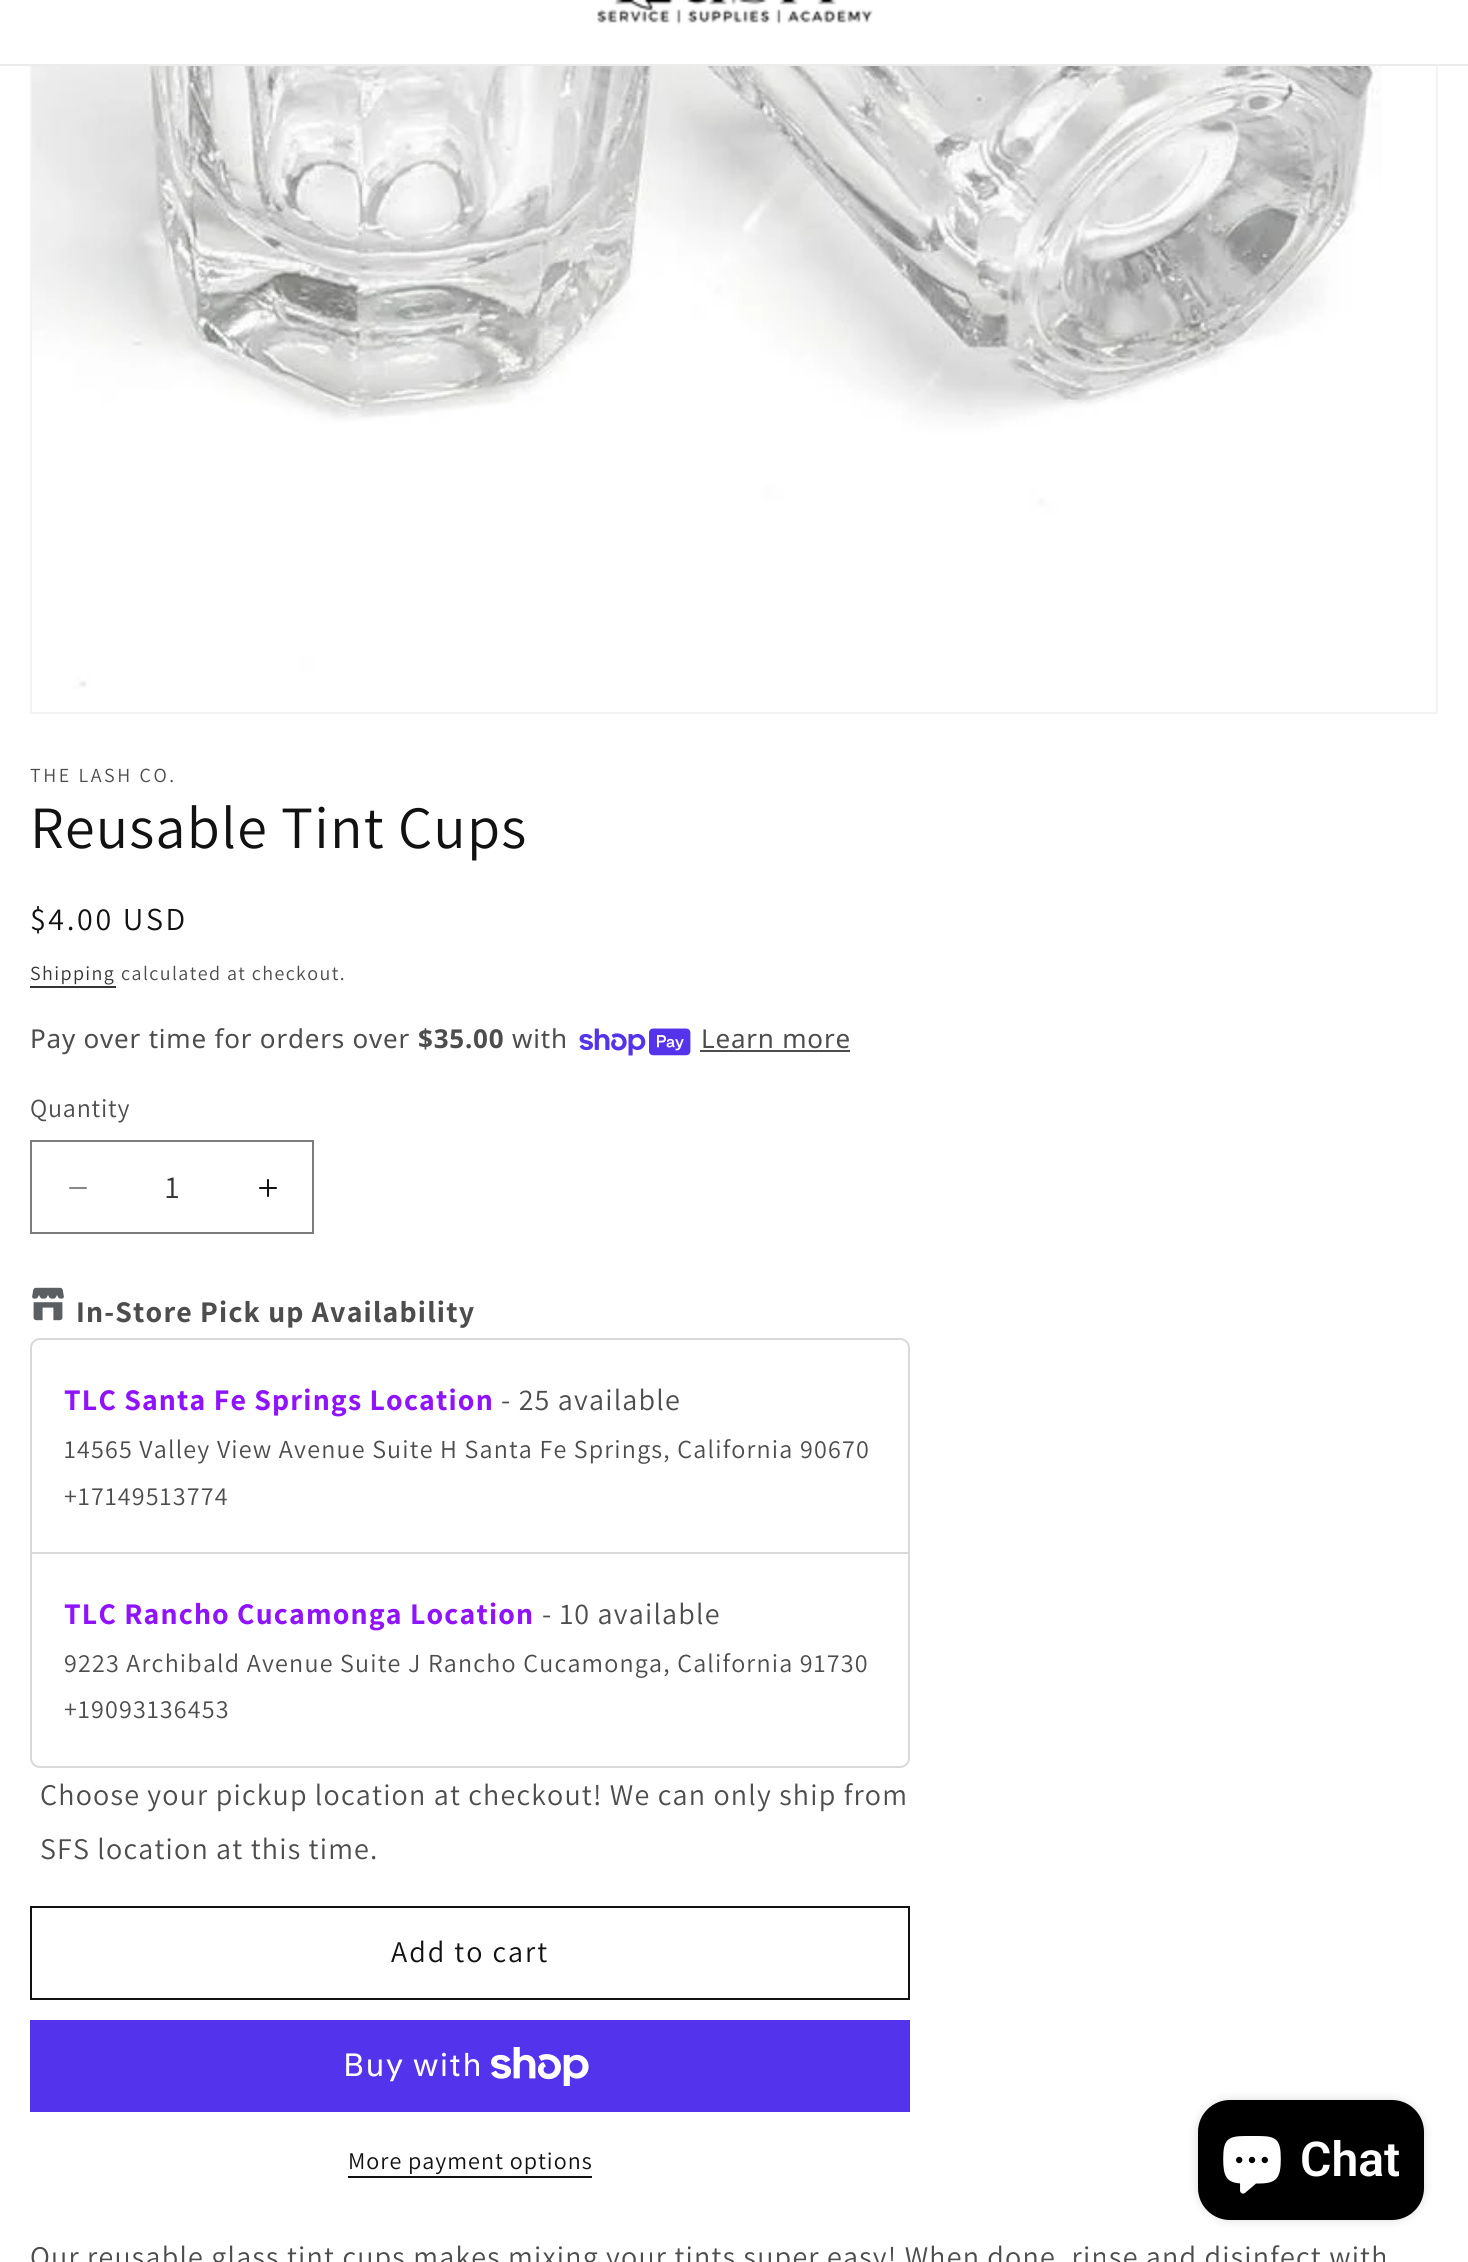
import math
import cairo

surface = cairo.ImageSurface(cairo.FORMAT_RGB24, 1468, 2262)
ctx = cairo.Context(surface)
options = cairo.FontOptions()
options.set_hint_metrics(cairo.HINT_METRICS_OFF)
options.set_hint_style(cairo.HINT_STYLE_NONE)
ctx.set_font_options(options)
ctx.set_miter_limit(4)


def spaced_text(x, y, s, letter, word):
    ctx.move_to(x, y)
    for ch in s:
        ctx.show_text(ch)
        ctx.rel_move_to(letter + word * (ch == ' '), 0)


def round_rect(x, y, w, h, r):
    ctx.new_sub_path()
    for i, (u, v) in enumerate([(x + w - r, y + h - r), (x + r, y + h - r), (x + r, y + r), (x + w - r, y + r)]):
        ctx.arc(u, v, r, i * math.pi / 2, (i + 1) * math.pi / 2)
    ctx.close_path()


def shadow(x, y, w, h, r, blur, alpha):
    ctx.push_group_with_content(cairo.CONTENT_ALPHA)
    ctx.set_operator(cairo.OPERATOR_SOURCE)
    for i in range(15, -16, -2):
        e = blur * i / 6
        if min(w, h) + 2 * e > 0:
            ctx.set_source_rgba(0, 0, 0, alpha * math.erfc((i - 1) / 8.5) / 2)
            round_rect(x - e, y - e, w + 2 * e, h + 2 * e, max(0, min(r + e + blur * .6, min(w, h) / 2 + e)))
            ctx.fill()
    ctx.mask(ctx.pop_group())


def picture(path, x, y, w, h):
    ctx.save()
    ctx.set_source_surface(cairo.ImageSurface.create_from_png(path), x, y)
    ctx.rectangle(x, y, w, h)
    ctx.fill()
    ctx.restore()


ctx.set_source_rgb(1, 1, 1)
ctx.paint()
ctx.rectangle(31, -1, 1406, 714)
ctx.set_source_rgb(0.953, 0.953, 0.953)
ctx.stroke()
ctx.set_source_rgb(1, 1, 1)
ctx.rectangle(30, 0, 1408, 64)
ctx.fill()
ctx.set_source_rgb(0.925, 0.925, 0.925)
ctx.rectangle(0, 64, 1468, 2)
ctx.fill()
picture("img1.png", 597, 0, 276, 25)
picture("img2.png", 32, 66, 1350, 623)
ctx.select_font_face("Assistant")
ctx.set_font_size(20)
ctx.set_source_rgb(0.302, 0.302, 0.302)
spaced_text(30, 782, "THE LASH CO.", 2.6, 0)
ctx.set_font_size(60)
ctx.set_source_rgb(0.071, 0.071, 0.071)
spaced_text(30, 848, "Reusable Tint Cups", 1.2, 0)
ctx.set_font_size(32)
spaced_text(30, 930, "$4.00 USD", 2.6, 0)
ctx.set_font_size(20)
ctx.set_source_rgb(0.212, 0.212, 0.212)
spaced_text(30, 980, "Shipping", 1.4, 0)
ctx.rectangle(30, 986, 86, 2)
ctx.fill()
ctx.set_source_rgb(0.302, 0.302, 0.302)
spaced_text(121, 980, "calculated at checkout.", 1.4, 0)
ctx.select_font_face("Noto Sans")
ctx.set_font_size(26)
spaced_text(30, 1048, "Pay over time for orders over", 0.8, 0)
ctx.select_font_face("Noto Sans", cairo.FONT_SLANT_NORMAL, cairo.FONT_WEIGHT_BOLD)
spaced_text(418, 1048, "$35.00", 0.8, 0)
ctx.select_font_face("Noto Sans")
spaced_text(512, 1048, "with", 0.8, 0)
picture("img3.png", 579, 1028, 112, 28)
spaced_text(701, 1048, "Learn more", 0.8, 0)
ctx.rectangle(700, 1050, 150, 2)
ctx.fill()
ctx.select_font_face("Assistant")
spaced_text(30, 1117, "Quantity", 0.8, 0)
picture("img4.png", 69, 1187, 18, 2)
picture("img5.png", 259, 1179, 18, 18)
ctx.rectangle(31, 1141, 282, 92)
ctx.set_source_rgb(0.49, 0.49, 0.49)
ctx.stroke()
ctx.set_font_size(32)
ctx.set_source_rgb(0.212, 0.212, 0.212)
ctx.move_to(165, 1198)
ctx.show_text("1")
picture("img6.png", 32, 1287, 32, 34)
ctx.select_font_face("Assistant", cairo.FONT_SLANT_NORMAL, cairo.FONT_WEIGHT_BOLD)
ctx.set_font_size(30)
ctx.set_source_rgb(0.302, 0.302, 0.302)
spaced_text(76, 1322, "In-Store Pick up Availability", 1.2, 0)
round_rect(31, 1339, 878, 428, 9)
ctx.set_source_rgb(0.851, 0.851, 0.851)
ctx.stroke()
ctx.set_source_rgb(0.565, 0.075, 0.996)
spaced_text(64, 1410, "TLC Santa Fe Springs Location", 1.2, 0)
ctx.select_font_face("Assistant")
ctx.set_source_rgb(0.302, 0.302, 0.302)
spaced_text(501, 1410, "- 25 available", 1.2, 0)
ctx.set_font_size(26)
spaced_text(64, 1458, "14565 Valley View Avenue Suite H Santa Fe Springs, California 90670", 1.2, 0)
spaced_text(64, 1505, "+17149513774", 1.2, 0)
ctx.set_source_rgb(0.851, 0.851, 0.851)
ctx.rectangle(32, 1552, 876, 2)
ctx.fill()
ctx.select_font_face("Assistant", cairo.FONT_SLANT_NORMAL, cairo.FONT_WEIGHT_BOLD)
ctx.set_font_size(30)
ctx.set_source_rgb(0.565, 0.075, 0.996)
spaced_text(64, 1624, "TLC Rancho Cucamonga Location", 1.2, 0)
ctx.select_font_face("Assistant")
ctx.set_source_rgb(0.302, 0.302, 0.302)
spaced_text(542, 1624, "- 10 available", 1.2, 0)
ctx.set_font_size(26)
spaced_text(64, 1672, "9223 Archibald Avenue Suite J Rancho Cucamonga, California 91730", 1.2, 0)
spaced_text(64, 1718, "+19093136453", 1.2, 0)
ctx.set_font_size(30)
spaced_text(40, 1805, "Choose your pickup location at checkout! We can only ship from", 1.2, 0)
spaced_text(40, 1859, "SFS location at this time.", 1.2, 0)
ctx.rectangle(31, 1907, 878, 92)
ctx.set_source_rgb(0.071, 0.071, 0.071)
ctx.stroke()
spaced_text(391, 1962, "Add to cart", 2, 0)
ctx.set_source_rgb(0.329, 0.2, 0.922)
ctx.rectangle(30, 2020, 880, 92)
ctx.fill()
ctx.select_font_face("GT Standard")
ctx.set_font_size(32)
ctx.set_source_rgb(1, 1, 1)
spaced_text(343, 2076, "Buy with", 1.2, 0)
picture("img7.png", 491, 2047, 98, 39)
ctx.select_font_face("Assistant")
ctx.set_font_size(24)
ctx.set_source_rgb(0.071, 0.071, 0.071)
spaced_text(348, 2169, "More payment options", 1, 0)
ctx.rectangle(348, 2176, 244, 2)
ctx.fill()
ctx.set_font_size(30)
ctx.set_source_rgb(0.302, 0.302, 0.302)
spaced_text(30, 2267, "Our reusable glass tint cups makes mixing your tints super easy! When done, rinse and disinfect with", 1.2, 0)
ctx.set_source_rgb(0, 0, 0)
shadow(1198, 2100, 226, 120, 32, 5, 0.15)
ctx.set_source_rgb(0, 0, 0)
round_rect(1198, 2100, 226, 120, 32)
ctx.fill()
picture("img8.png", 1223, 2136, 58, 58)
ctx.select_font_face("Roboto SemiBold")
ctx.set_font_size(48)
ctx.set_source_rgb(1, 1, 1)
ctx.move_to(1300, 2176)
ctx.show_text("Chat")
surface.write_to_png("page.png")
